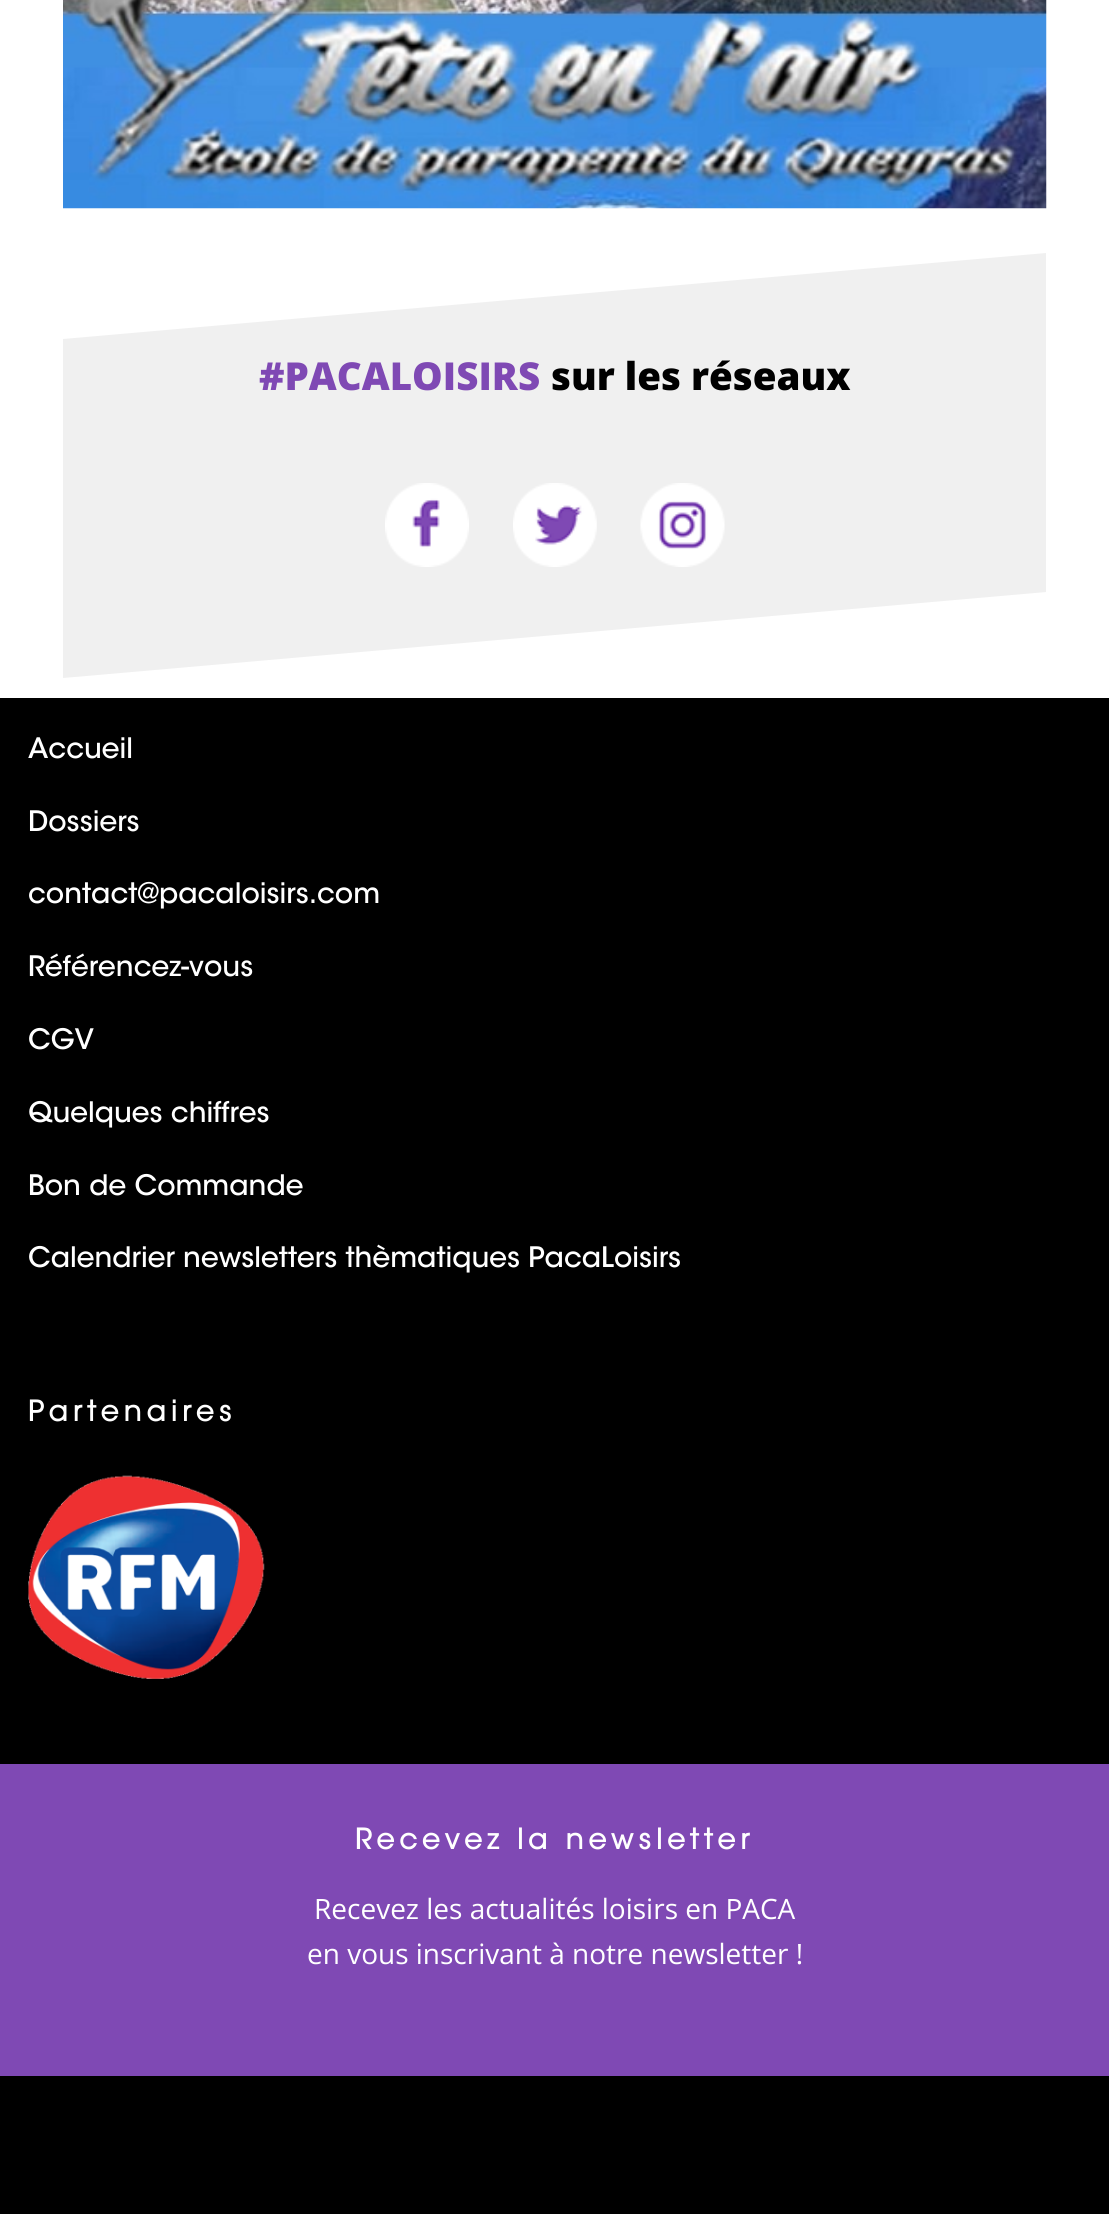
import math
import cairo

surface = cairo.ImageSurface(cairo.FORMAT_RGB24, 1109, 2214)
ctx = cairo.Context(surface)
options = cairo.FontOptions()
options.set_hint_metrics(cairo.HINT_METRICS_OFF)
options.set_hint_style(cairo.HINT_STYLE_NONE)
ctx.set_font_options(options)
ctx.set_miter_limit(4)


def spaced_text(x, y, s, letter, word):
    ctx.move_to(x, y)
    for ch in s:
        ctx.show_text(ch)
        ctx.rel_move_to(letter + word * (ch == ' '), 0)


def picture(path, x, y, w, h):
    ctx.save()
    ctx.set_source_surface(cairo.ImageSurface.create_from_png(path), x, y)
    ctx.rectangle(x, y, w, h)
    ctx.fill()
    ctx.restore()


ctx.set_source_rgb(1, 1, 1)
ctx.paint()
picture("img1.png", 63, 0, 984, 209)
ctx.set_source_rgb(0.941, 0.941, 0.941)
ctx.new_path()
ctx.move_to(63, 339)
ctx.line_to(1046, 253)
ctx.line_to(1046, 592)
ctx.line_to(63, 678)
ctx.close_path()
ctx.fill()
ctx.select_font_face("Open Sans ExtraBold")
ctx.set_font_size(38.5)
ctx.set_source_rgb(0.498, 0.286, 0.706)
ctx.move_to(259, 390)
ctx.show_text("#PACALOISIRS")
ctx.set_source_rgb(0, 0, 0)
ctx.move_to(551, 390)
ctx.show_text("sur les réseaux")
picture("img2.png", 385, 483, 84, 84)
picture("img3.png", 513, 483, 84, 84)
picture("img4.png", 640, 483, 85, 84)
ctx.rectangle(0, 698, 1109, 1516)
ctx.fill()
ctx.select_font_face("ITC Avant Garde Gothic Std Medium")
ctx.set_font_size(28)
ctx.set_source_rgb(1, 1, 1)
ctx.move_to(28, 758)
ctx.show_text("Accueil")
ctx.move_to(28, 831)
ctx.show_text("Dossiers")
ctx.move_to(28, 903)
ctx.show_text("contact@pacaloisirs.com")
ctx.move_to(28, 976)
ctx.show_text("Référencez-vous")
ctx.move_to(28, 1049)
ctx.show_text("CGV")
ctx.move_to(28, 1122)
ctx.show_text("Quelques chiffres")
ctx.move_to(28, 1195)
ctx.show_text("Bon de Commande")
ctx.move_to(28, 1267)
ctx.show_text("Calendrier newsletters thèmatiques PacaLoisirs")
ctx.select_font_face("ITC Avant Garde Gothic Std", cairo.FONT_SLANT_NORMAL, cairo.FONT_WEIGHT_BOLD)
spaced_text(28, 1421, "Partenaires", 5.1, 0)
picture("img5.png", 28, 1475, 237, 204)
ctx.set_source_rgb(0.498, 0.286, 0.706)
ctx.rectangle(0, 1764, 1109, 312)
ctx.fill()
ctx.set_source_rgb(1, 1, 1)
spaced_text(355, 1849, "Recevez la newsletter", 5.1, 0)
ctx.select_font_face("Open Sans")
ctx.move_to(314, 1919)
ctx.show_text("Recevez les actualités loisirs en PACA")
ctx.move_to(307, 1964)
ctx.show_text("en vous inscrivant à notre newsletter !")
surface.write_to_png("page.png")
